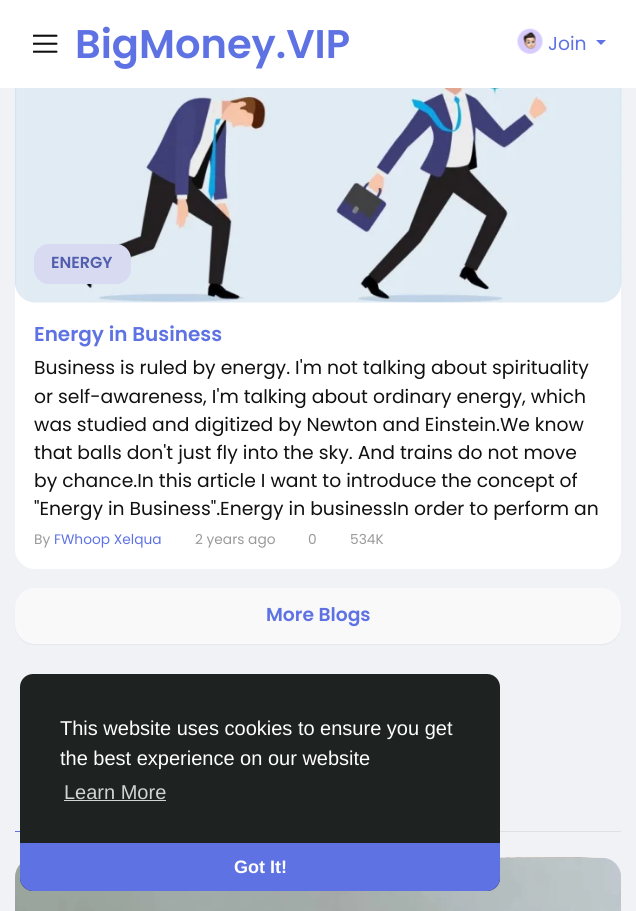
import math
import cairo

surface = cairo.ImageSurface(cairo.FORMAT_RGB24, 636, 911)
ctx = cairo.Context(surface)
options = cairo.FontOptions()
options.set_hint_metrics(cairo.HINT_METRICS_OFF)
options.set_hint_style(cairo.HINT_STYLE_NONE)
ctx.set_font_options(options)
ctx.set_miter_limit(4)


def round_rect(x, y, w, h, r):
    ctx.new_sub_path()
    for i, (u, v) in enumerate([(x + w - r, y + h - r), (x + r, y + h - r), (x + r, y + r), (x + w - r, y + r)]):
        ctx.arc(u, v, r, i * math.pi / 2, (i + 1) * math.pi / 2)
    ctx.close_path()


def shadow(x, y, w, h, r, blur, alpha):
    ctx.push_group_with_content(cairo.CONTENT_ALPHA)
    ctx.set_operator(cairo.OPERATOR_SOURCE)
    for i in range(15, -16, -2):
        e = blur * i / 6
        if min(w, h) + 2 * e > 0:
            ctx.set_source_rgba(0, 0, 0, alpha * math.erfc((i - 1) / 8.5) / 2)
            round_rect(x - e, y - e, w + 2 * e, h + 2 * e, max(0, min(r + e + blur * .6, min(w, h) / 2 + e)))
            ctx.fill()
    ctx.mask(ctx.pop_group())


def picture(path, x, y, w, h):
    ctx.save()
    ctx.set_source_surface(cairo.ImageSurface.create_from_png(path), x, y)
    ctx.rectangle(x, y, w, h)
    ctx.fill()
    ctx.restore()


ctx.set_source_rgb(0.941, 0.949, 0.961)
ctx.paint()
ctx.set_source_rgb(1, 1, 1)
round_rect(15, -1, 606, 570, 20)
ctx.fill()
ctx.rectangle(0, 0, 636, 88)
ctx.fill()
picture("img1.png", 33, 34, 25, 19)
ctx.select_font_face("Poppins SemiBold")
ctx.set_font_size(40)
ctx.set_source_rgb(0.369, 0.447, 0.894)
ctx.move_to(75, 58)
ctx.show_text("BigMoney.VIP")
picture("img2.png", 517, 28, 26, 26)
ctx.select_font_face("Poppins")
ctx.set_font_size(18.75)
ctx.move_to(548, 50)
ctx.show_text("Join")
ctx.new_path()
ctx.move_to(596, 40)
ctx.line_to(606, 40)
ctx.line_to(601, 45)
ctx.close_path()
ctx.fill()
picture("img3.png", 15, 88, 607, 215)
ctx.set_source_rgb(0.847, 0.855, 0.949)
round_rect(34, 244, 97, 40, 15)
ctx.fill()
ctx.select_font_face("Poppins SemiBold")
ctx.set_font_size(16)
ctx.set_source_rgb(0.318, 0.369, 0.671)
ctx.move_to(51, 268)
ctx.show_text("ENERGY")
ctx.set_font_size(20)
ctx.set_source_rgb(0.369, 0.447, 0.894)
ctx.move_to(34, 341)
ctx.show_text("Energy in Business")
ctx.select_font_face("Poppins")
ctx.set_font_size(18.75)
ctx.set_source_rgb(0.067, 0.067, 0.067)
ctx.move_to(34, 374)
ctx.show_text("Business is ruled by energy. I'm not talking about spirituality")
ctx.move_to(34, 403)
ctx.show_text("or self-awareness, I'm talking about ordinary energy, which")
ctx.move_to(34, 431)
ctx.show_text("was studied and digitized by Newton and Einstein.We know")
ctx.move_to(34, 459)
ctx.show_text("that balls don't just fly into the sky. And trains do not move")
ctx.move_to(34, 487)
ctx.show_text("by chance.In this article I want to introduce the concept of")
ctx.move_to(34, 515)
ctx.show_text("\"Energy in Business\".Energy in businessIn order to perform an")
ctx.set_font_size(13.75)
ctx.set_source_rgb(0.6, 0.6, 0.6)
ctx.move_to(34, 544)
ctx.show_text("By")
ctx.set_source_rgb(0.369, 0.447, 0.894)
ctx.move_to(54, 544)
ctx.show_text("FWhoop Xelqua")
ctx.set_source_rgb(0.6, 0.6, 0.6)
ctx.move_to(195, 544)
ctx.show_text("2 years ago")
ctx.move_to(308, 544)
ctx.show_text("0")
ctx.move_to(350, 544)
ctx.show_text("534K")
ctx.set_source_rgb(0, 0, 0)
shadow(15, 589, 606, 56, 20, 0.5, 0.05)
ctx.set_source_rgb(0.973, 0.976, 0.98)
round_rect(15, 588, 606, 56, 20)
ctx.fill()
ctx.select_font_face("Poppins SemiBold")
ctx.set_font_size(18.75)
ctx.set_source_rgb(0.369, 0.447, 0.894)
ctx.move_to(266, 621)
ctx.show_text("More Blogs")
ctx.set_source_rgb(0.882, 0.882, 0.882)
ctx.rectangle(500, 831, 121, 1)
ctx.fill()
ctx.set_source_rgb(0.369, 0.447, 0.894)
ctx.rectangle(15, 831, 5, 1)
ctx.fill()
picture("img4.png", 15, 857, 606, 54)
ctx.set_source_rgb(0.118, 0.137, 0.129)
round_rect(20, 674, 480, 217, 13)
ctx.fill()
ctx.select_font_face("Liberation Sans")
ctx.set_font_size(20)
ctx.set_source_rgb(1, 1, 1)
ctx.move_to(60, 735)
ctx.show_text("This website uses cookies to ensure you get")
ctx.move_to(60, 765)
ctx.show_text("the best experience on our website")
ctx.set_source_rgb(0.824, 0.827, 0.827)
ctx.move_to(64, 799)
ctx.show_text("Learn More")
ctx.rectangle(64, 800, 102, 1)
ctx.fill()
ctx.set_source_rgb(0.369, 0.447, 0.894)
ctx.new_path()
ctx.move_to(20, 843)
ctx.line_to(500, 843)
ctx.line_to(500, 878)
ctx.curve_to(500, 885, 494, 891, 487, 891)
ctx.line_to(33, 891)
ctx.curve_to(26, 891, 20, 885, 20, 878)
ctx.close_path()
ctx.fill()
ctx.select_font_face("Liberation Sans", cairo.FONT_SLANT_NORMAL, cairo.FONT_WEIGHT_BOLD)
ctx.set_font_size(18)
ctx.set_source_rgb(1, 1, 1)
ctx.move_to(234, 873)
ctx.show_text("Got It!")
surface.write_to_png("page.png")
